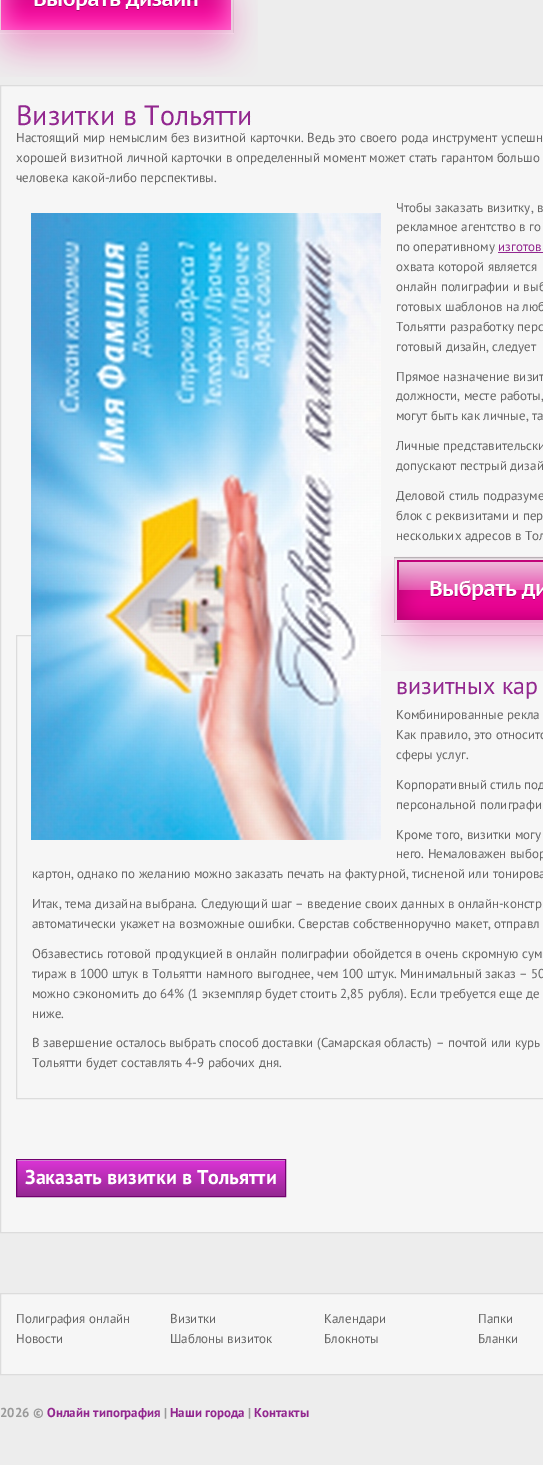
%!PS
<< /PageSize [543 1465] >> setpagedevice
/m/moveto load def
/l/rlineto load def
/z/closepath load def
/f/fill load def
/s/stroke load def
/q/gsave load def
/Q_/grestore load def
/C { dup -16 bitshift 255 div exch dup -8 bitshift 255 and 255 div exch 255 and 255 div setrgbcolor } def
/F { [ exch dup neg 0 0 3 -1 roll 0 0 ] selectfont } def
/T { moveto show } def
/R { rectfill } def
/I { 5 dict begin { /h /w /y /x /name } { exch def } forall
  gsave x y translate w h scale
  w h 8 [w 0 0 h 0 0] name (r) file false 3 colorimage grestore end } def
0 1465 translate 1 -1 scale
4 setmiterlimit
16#EDEDED C
0 0 543 1465 R
(1.rgb) 0 0 258 77 I
16#F6F6F6 C
.5 85.5 m 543 0 l 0 1147 l -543 0 l z q f Q_
16#DCDCDC C
s
/PTSans-Regular 28 F
16#92278F C
(Визитки в Тольятти) 16 125 T
/PTSans-Regular 13 F
16#666666 C
(Настоящий мир немыслим без визитной карточки. Ведь это своего рода инструмент успешн) 16 142 T
(хорошей визитной личной карточки в определенный момент может стать гарантом большо) 16 162 T
(человека какой-либо перспективы.) 16 182 T
16#DCDCDC C
16.5 635.5 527 463 rectstroke
(2.rgb) 31 213 350 627 I
16#666666 C
(Чтобы заказать визитку, в) 396 212 T
(рекламное агентство в го) 396 231 T
(по оперативному) 396 251 T
16#92278F C
(изготов) 498 251 T
498 252 45 1 R
16#666666 C
(охвата которой является) 396 271 T
(онлайн полиграфии и выб) 396 291 T
(готовых шаблонов на люб) 396 311 T
(Тольятти разработку перс) 396 331 T
(готовый дизайн, следует) 396 351 T
(Прямое назначение визит) 396 381 T
(должности, месте работы,) 396 400 T
(могут быть как личные, та) 396 420 T
(Личные представительски) 396 450 T
(допускают пестрый дизай) 396 470 T
(Деловой стиль подразуме) 396 500 T
(блок с реквизитами и пер) 396 520 T
(нескольких адресов в Тол) 396 540 T
(3.rgb) 370 556 173 115 I
/PTSans-Regular 24 F
16#92278F C
(визитных кар) 396 694 T
/PTSans-Regular 13 F
16#666666 C
(Комбинированные рекла) 396 719 T
(Как правило, это относитс) 396 739 T
(сферы услуг.) 396 759 T
(Корпоративный стиль под) 396 789 T
(персональной полиграфи) 396 809 T
(Кроме того, визитки могу) 396 839 T
(него. Немаловажен выбор) 396 858 T
(картон, однако по желанию можно заказать печать на фактурной, тисненой или тонирова) 32 878 T
(Итак, тема дизайна выбрана. Следующий шаг – введение своих данных в онлайн-констр) 32 908 T
(автоматически укажет на возможные ошибки. Сверстав собственноручно макет, отправл) 32 928 T
(Обзавестись готовой продукцией в онлайн полиграфии обойдется в очень скромную сум) 32 958 T
(тираж в 1000 штук в Тольятти намного выгоднее, чем 100 штук. Минимальный заказ – 50) 32 978 T
(можно сэкономить до 64% \(1 экземпляр будет стоить 2,85 рубля\). Если требуется еще де) 32 998 T
(ниже.) 32 1018 T
(В завершение осталось выбрать способ доставки \(Самарская область\) – почтой или курь) 32 1047 T
(Тольятти будет составлять 4-9 рабочих дня.) 32 1067 T
q 17 1161 m 268 0 l 0 35 l -268 0 l z clip newpath
<< /ShadingType 2 /ColorSpace /DeviceRGB /Coords [151 1160 151 1196] /Extend [true true] /Function << /FunctionType 2 /Domain [0 1] /C0 [.859 .204 .839] /C1 [.584 .157 .573] /N 1 >> >> shfill Q_
16#F0AEEE C
17 1160 268 1 R
16#72006F C
16.5 1159.5 269 37 rectstroke
/PTSans-Bold 20 F
16#FFFFFF C
(Заказать визитки в Тольятти) 25 1184 T
16#F6F6F6 C
.5 1293.5 m 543 0 l 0 81 l -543 0 l z q f Q_
16#DCDCDC C
s
/PTSans-Regular 13 F
16#666666 C
(Полиграфия онлайн) 16 1323 T
(Новости) 16 1343 T
(Визитки) 170 1323 T
(Шаблоны визиток) 170 1343 T
(Календари) 324 1323 T
(Блокноты) 324 1343 T
(Папки) 478 1323 T
(Бланки) 478 1343 T
/PTSans-Bold 13 F
16#999999 C
(2026 ©) 0 1417 T
16#92278F C
(Онлайн типография) 47 1417 T
16#999999 C
(|) 164 1417 T
16#92278F C
(Наши города) 170 1417 T
16#999999 C
(|) 248 1417 T
16#92278F C
(Контакты) 254 1417 T
showpage
